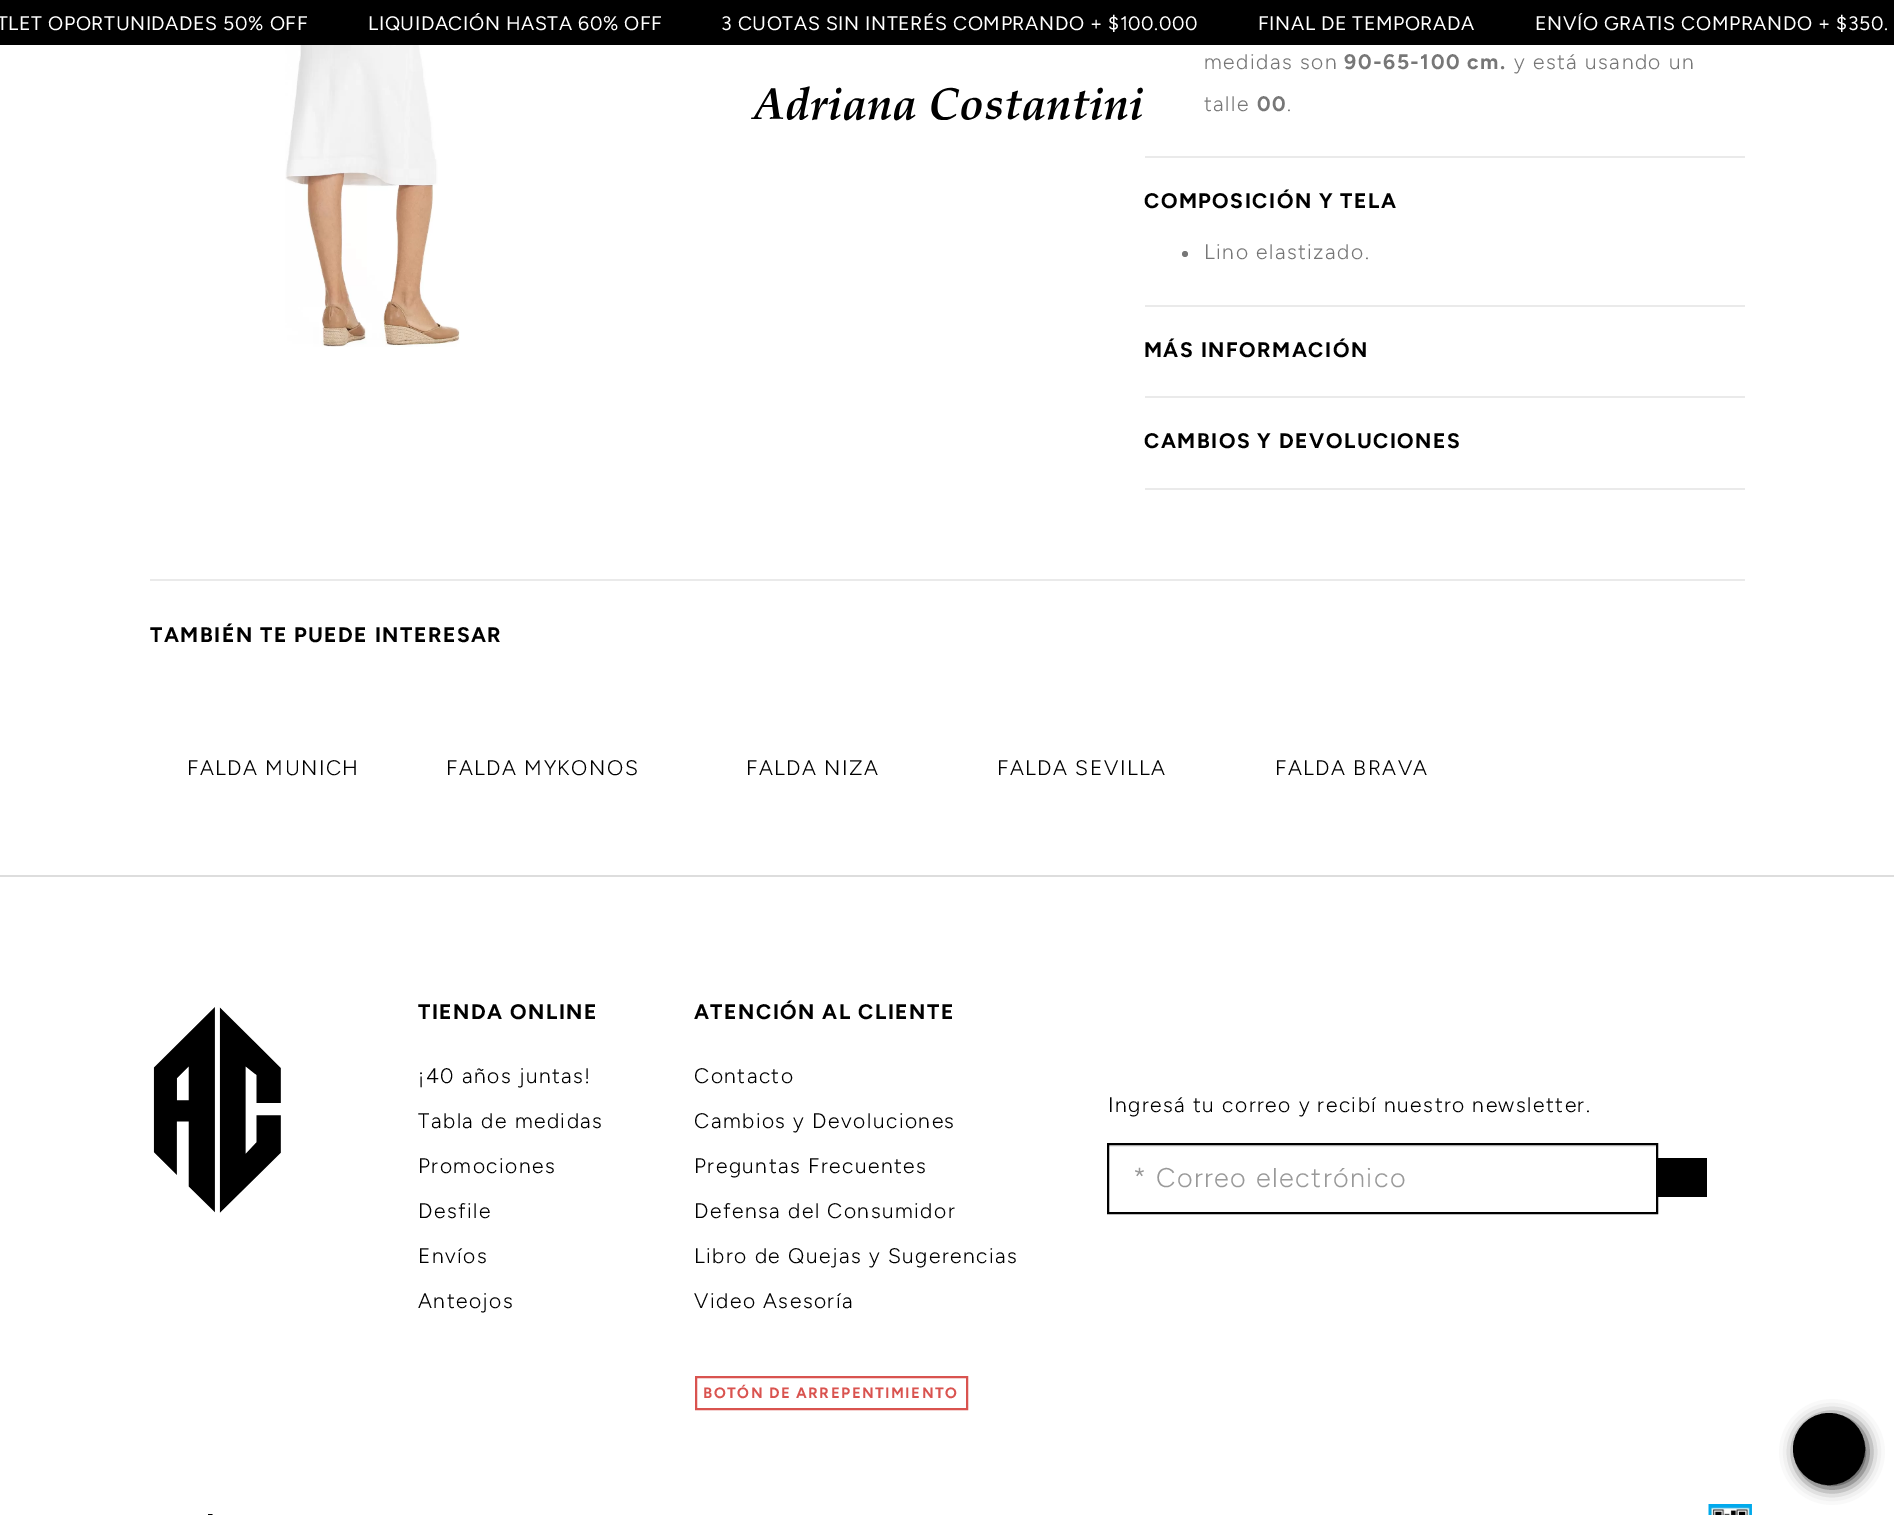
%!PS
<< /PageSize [1894 1515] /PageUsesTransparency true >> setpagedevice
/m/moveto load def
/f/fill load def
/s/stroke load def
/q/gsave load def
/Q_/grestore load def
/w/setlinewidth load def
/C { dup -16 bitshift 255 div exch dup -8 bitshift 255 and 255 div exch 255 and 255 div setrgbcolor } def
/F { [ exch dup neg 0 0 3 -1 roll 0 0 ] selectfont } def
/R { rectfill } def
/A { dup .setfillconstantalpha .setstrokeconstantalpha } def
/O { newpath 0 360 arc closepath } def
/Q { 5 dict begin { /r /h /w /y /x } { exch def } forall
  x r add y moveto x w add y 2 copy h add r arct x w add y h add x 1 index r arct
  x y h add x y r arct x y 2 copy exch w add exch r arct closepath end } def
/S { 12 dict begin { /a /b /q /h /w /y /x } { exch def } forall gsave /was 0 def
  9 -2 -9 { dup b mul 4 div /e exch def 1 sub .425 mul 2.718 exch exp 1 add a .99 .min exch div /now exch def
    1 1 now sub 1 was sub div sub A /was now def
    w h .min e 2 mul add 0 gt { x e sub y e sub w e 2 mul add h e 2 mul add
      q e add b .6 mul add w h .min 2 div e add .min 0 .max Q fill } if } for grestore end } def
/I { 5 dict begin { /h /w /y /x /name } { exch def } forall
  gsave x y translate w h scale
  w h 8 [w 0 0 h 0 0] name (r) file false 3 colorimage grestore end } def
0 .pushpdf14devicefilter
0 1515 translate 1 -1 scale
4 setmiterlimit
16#FFFFFF C
0 0 1894 1515 R
16#000000 C
0 0 1894 45 R
/Figtree-Regular 19.5 F
16#FFFFFF C
-3 30 m .6 0 (TLET OPORTUNIDADES 50% OFF) ashow
368 30 m .6 0 (LIQUIDACIÓN HASTA 60% OFF) ashow
721 30 m .6 0 (3 CUOTAS SIN INTERÉS COMPRANDO + $100.000) ashow
1258 30 m .6 0 (FINAL DE TEMPORADA) ashow
1535 30 m .6 0 (ENVÍO GRATIS COMPRANDO + $350.) ashow
(1.rgb) 285 45 175 302 I
/Figtree-Light 21 F
16#777777 C
1204 69 m 1.5 0 (medidas son) ashow
/Figtree-Bold 21 F
1344 69 m 1.5 0 (90-65-100 cm.) ashow
/Figtree-Light 21 F
1514 69 m 1.5 0 (y está usando un) ashow
1204 111 m 1.5 0 (talle) ashow
/Figtree-Bold 21 F
1257 111 m 1.5 0 (00) ashow
/Figtree-Light 21 F
1287 111 m 1.5 0 (.) ashow
16#EAEAEA C
1145 156 600 2 R
/Figtree-Bold 21 F
16#000000 C
1144 208 m 1.5 0 (COMPOSICIÓN Y TELA) ashow
16#777777 C
1185 254 3 O f
/Figtree-Light 21 F
1204 259 m 1.5 0 (Lino elastizado.) ashow
16#EAEAEA C
1145 305 600 2 R
/Figtree-Bold 21 F
16#000000 C
1144 357 m 1.5 0 (MÁS INFORMACIÓN) ashow
16#EAEAEA C
1145 396 600 2 R
16#000000 C
1144 448 m 1.5 0 (CAMBIOS Y DEVOLUCIONES) ashow
16#EAEAEA C
1145 488 600 2 R
150 579 1595 2 R
16#000000 C
150 642 m 1.5 0 (TAMBIÉN TE PUEDE INTERESAR) ashow
/Figtree-Light 21 F
187 775 m 1.5 0 (FALDA MUNICH) ashow
446 775 m 1.5 0 (FALDA MYKONOS) ashow
746 775 m 1.5 0 (FALDA NIZA) ashow
997 775 m 1.5 0 (FALDA SEVILLA) ashow
1275 775 m 1.5 0 (FALDA BRAVA) ashow
(2.rgb) 751 86 392 35 I
16#DDDDDD C
0 875 1894 2 R
(3.rgb) 153 1007 128 206 I
/Figtree-Bold 21 F
16#000000 C
418 1019 m 1.5 0 (TIENDA ONLINE) ashow
/Figtree-Light 21 F
418 1083 m 1.5 0 (¡40 años juntas!) ashow
418 1128 m 1.5 0 (Tabla de medidas) ashow
418 1173 m 1.5 0 (Promociones) ashow
418 1218 m 1.5 0 (Desfile) ashow
418 1263 m 1.5 0 (Envíos) ashow
418 1308 m 1.5 0 (Anteojos) ashow
/Figtree-Bold 21 F
694 1019 m 1.5 0 (ATENCIÓN AL CLIENTE) ashow
/Figtree-Light 21 F
694 1083 m 1.5 0 (Contacto) ashow
694 1128 m 1.5 0 (Cambios y Devoluciones) ashow
694 1173 m 1.5 0 (Preguntas Frecuentes) ashow
694 1218 m 1.5 0 (Defensa del Consumidor) ashow
694 1263 m 1.5 0 (Libro de Quejas y Sugerencias) ashow
694 1308 m 1.5 0 (Video Asesoría) ashow
16#D9534F C
2 w
696 1377 271 32 rectstroke
/Figtree-Bold 15 F
703 1398 m 1.5 0 (BOTÓN DE ARREPENTIMIENTO) ashow
/Figtree-Light 21 F
16#000000 C
1108 1112 m 1.5 0 (Ingresá tu correo y recibí nuestro newsletter.) ashow
16#ECECEC C
1109 1145 547 2 R
16#000000 C
1108 1144 549 69 rectstroke
/Figtree-Light 27 F
16#999999 C
1133 1187 m 1.5 0 (* Correo electrónico) ashow
16#000000 C
1658 1158 49 39 R
/Figtree-Light 15 F
207 1519 m 1.5 0 (-) ashow
(4.rgb) 1708 1504 44 11 I
16#333333 C
1796 1416 72 72 36 7.5 1 S
16#000000 C
1829 1449 35 O q f Q_
s
.poppdf14devicefilter showpage
